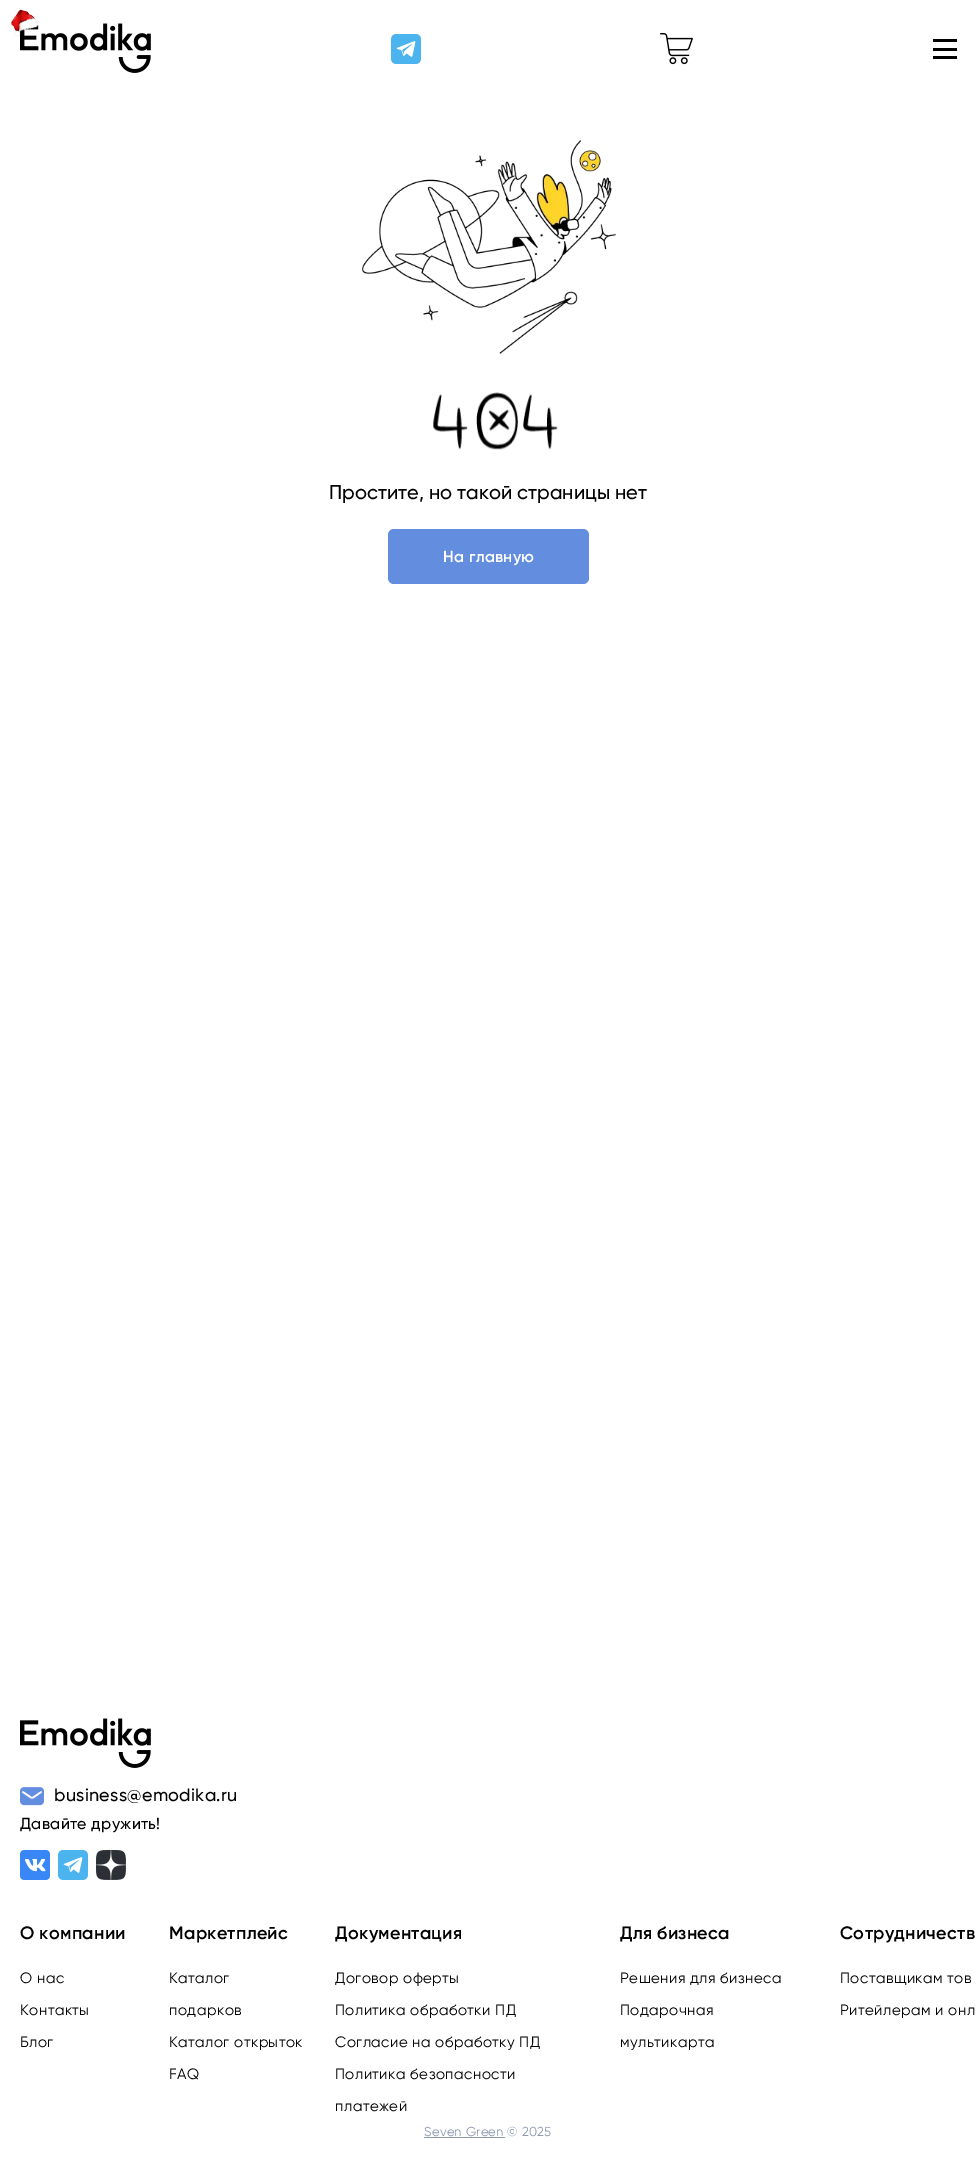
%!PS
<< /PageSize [977 2182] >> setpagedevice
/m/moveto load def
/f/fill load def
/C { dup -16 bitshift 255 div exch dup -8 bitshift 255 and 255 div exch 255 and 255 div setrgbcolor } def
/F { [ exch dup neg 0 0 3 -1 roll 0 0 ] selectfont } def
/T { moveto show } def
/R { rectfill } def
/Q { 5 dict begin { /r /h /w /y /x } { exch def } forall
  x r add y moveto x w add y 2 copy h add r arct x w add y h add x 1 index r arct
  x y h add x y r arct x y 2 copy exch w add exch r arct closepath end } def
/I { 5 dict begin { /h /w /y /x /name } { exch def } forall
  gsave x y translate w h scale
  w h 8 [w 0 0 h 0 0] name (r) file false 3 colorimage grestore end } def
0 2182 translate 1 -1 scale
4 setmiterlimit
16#FFFFFF C
0 0 977 2182 R
(2.rgb) 20 23 131 50 I
(1.rgb) 11 9 27 28 I
(3.rgb) 391 34 30 30 I
(4.rgb) 660 33 33 32 I
16#000000 C
933 39 24 3 R
933 48 24 3 R
933 56 24 3 R
(5.rgb) 362 140 254 214 I
(6.rgb) 433 392 125 58 I
/Gilroy-Medium 20 F
(Простите, но такой страницы нет) 329 499 T
16#638DDE C
388 529 201 55 6 Q f
/Gilroy-SemiBold 16 F
16#FFFFFF C
443 562 m .3 0 (На главную) ashow
(2.rgb) 20 1718 131 50 I
(7.rgb) 20 1787 24 19 I
/Gilroy-Medium 18 F
16#000000 C
54 1801 m .3 0 (business@emodika.ru) ashow
/Gilroy-Medium 16 F
20 1829 m .3 0 (Давайте дружить!) ashow
(8.rgb) 20 1850 30 30 I
(3.rgb) 58 1850 30 30 I
(9.rgb) 96 1850 30 30 I
/Gilroy-SemiBold 18 F
20 1939 m .3 0 (О компании) ashow
/Gilroy-Regular 15 F
20 1983 m .45 0 (О нас) ashow
20 2015 m .45 0 (Контакты) ashow
20 2047 m .45 0 (Блог) ashow
/Gilroy-SemiBold 18 F
169 1939 m .3 0 (Маркетплейс) ashow
/Gilroy-Regular 15 F
169 1983 m .45 0 (Каталог) ashow
169 2015 m .45 0 (подарков) ashow
169 2047 m .45 0 (Каталог открыток) ashow
169 2079 m .45 0 (FAQ) ashow
/Gilroy-SemiBold 18 F
335 1939 m .3 0 (Документация) ashow
/Gilroy-Regular 15 F
335 1983 m .45 0 (Договор оферты) ashow
335 2015 m .45 0 (Политика обработки ПД) ashow
335 2047 m .45 0 (Согласие на обработку ПД) ashow
335 2079 m .45 0 (Политика безопасности) ashow
335 2111 m .45 0 (платежей) ashow
/Gilroy-SemiBold 18 F
620 1939 m .3 0 (Для бизнеса) ashow
/Gilroy-Regular 15 F
620 1983 m .45 0 (Решения для бизнеса) ashow
620 2015 m .45 0 (Подарочная) ashow
620 2047 m .45 0 (мультикарта) ashow
/Gilroy-SemiBold 18 F
840 1939 m .3 0 (Сотрудничеств) ashow
/Gilroy-Regular 15 F
840 1983 m .45 0 (Поставщикам тов) ashow
840 2015 m .45 0 (Ритейлерам и онл) ashow
/Gilroy-Regular 13 F
16#8D99AF C
424 2136 m .3 0 (Seven Green © 2025) ashow
424 2137 81 1 R
showpage
